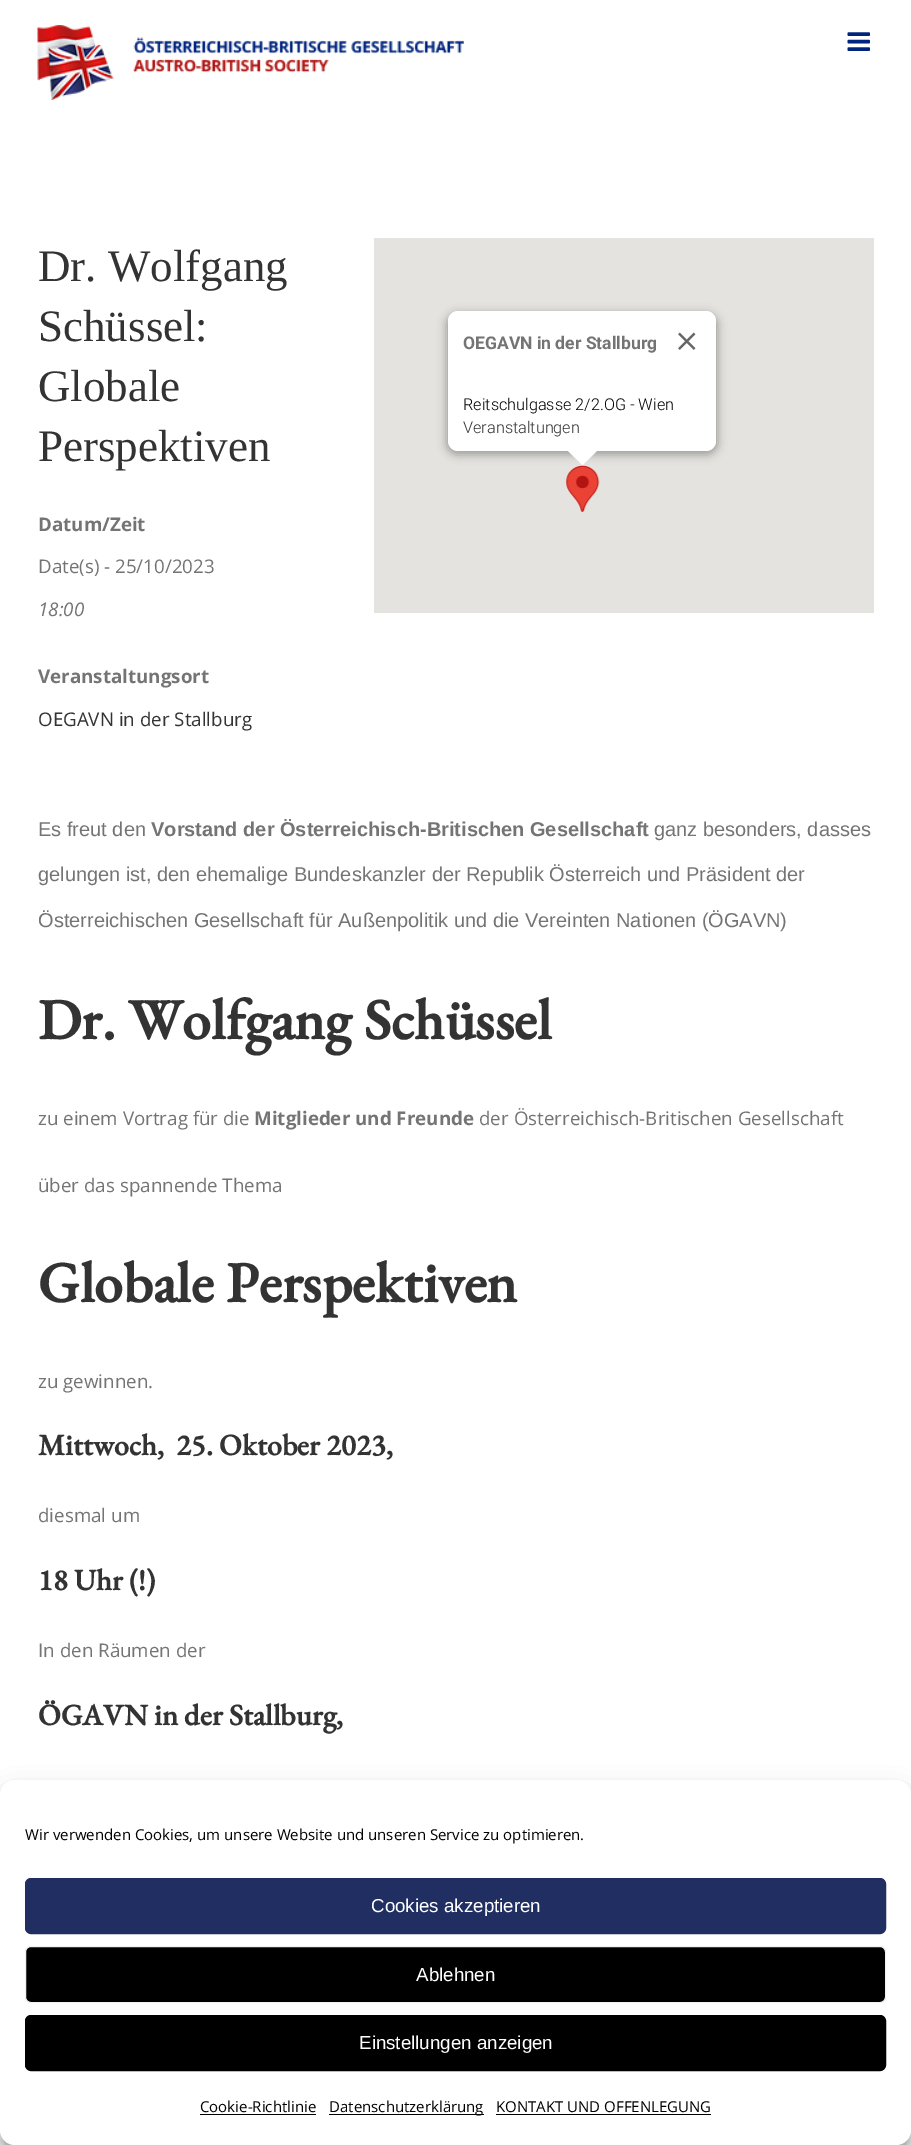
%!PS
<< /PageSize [911 2145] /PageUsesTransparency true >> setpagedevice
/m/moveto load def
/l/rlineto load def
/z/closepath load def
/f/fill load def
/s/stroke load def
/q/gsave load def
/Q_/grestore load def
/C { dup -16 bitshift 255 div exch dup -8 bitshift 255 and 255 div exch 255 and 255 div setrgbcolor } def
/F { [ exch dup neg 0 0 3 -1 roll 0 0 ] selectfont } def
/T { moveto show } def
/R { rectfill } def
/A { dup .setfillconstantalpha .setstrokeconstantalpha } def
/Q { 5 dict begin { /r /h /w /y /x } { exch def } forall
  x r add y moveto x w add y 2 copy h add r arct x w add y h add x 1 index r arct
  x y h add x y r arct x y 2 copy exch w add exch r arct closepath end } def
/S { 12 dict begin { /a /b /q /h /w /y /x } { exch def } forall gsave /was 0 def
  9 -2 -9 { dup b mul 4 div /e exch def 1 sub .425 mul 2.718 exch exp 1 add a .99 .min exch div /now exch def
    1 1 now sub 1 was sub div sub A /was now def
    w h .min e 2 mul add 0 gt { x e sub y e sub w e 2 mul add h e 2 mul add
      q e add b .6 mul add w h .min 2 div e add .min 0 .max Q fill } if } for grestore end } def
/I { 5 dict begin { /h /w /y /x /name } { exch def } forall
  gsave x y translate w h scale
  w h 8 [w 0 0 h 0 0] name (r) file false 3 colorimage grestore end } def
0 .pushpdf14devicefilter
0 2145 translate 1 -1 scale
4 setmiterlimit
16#FFFFFF C
0 0 911 2145 R
(1.rgb) 37 25 427 75 I
(2.rgb) 847 32 23 19 I
/LiberationSerif-Regular 45 F
16#333333 C
(Dr. Wolfgang) 38 281 T
(Schüssel:) 38 341 T
(Globale) 38 401 T
(Perspektiven) 38 461 T
16#E5E3DF C
374 238 500 375 R
(4.rgb) 566 465 34 47 I
16#000000 C
446 313 272 142 11 4.5 .3 S
16#FFFFFF C
448 311 268 140 10 Q f
/Roboto-Bold 17.5 F
16#747474 C
(OEGAVN in der Stallburg) 463 349 T
(3.rgb) 678 332 18 18 I
/Roboto-Light 16.25 F
16#000000 C
(Reitschulgasse 2/2.OG - Wien) 463 410 T
16#333333 C
(Veranstaltungen) 463 433 T
16#FFFFFF C
568 450 m 0 1 l 14.5 14 l 15.5 -15 l z f
/OpenSans-Bold 18.75 F
16#747474 C
(Datum/Zeit) 38 531 T
/OpenSans-Regular 18.75 F
(Date\(s\) - 25/10/2023) 38 573 T
/OpenSans-Italic 18.75 F
(18:00) 38 616 T
/OpenSans-Bold 18.75 F
(Veranstaltungsort) 38 683 T
/OpenSans-Regular 18.75 F
16#333333 C
(OEGAVN in der Stallburg) 38 726 T
/LiberationSans-Regular 20 F
16#747474 C
(Es freut den) 38 836 T
/LiberationSans-Bold 20 F
(Vorstand der Österreichisch-Britischen Gesellschaft) 151 836 T
/LiberationSans-Regular 20 F
(ganz besonders, dasses) 654 836 T
(gelungen ist, den ehemalige Bundeskanzler der Republik Österreich und Präsident der) 38 881 T
(Österreichischen Gesellschaft für Außenpolitik und die Vereinten Nationen \(ÖGAVN\)) 38 927 T
/EBGaramond-Bold 57.25 F
16#333333 C
(Dr. Wolfgang Schüssel) 38 1039 T
/OpenSans-Regular 18.75 F
16#747474 C
(zu einem Vortrag für die) 38 1125 T
/OpenSans-Bold 18.75 F
(Mitglieder und Freunde) 254 1125 T
/OpenSans-Regular 18.75 F
(der Österreichisch-Britischen Gesellschaft) 479 1125 T
(über das spannende Thema) 38 1192 T
/EBGaramond-Bold 57.25 F
16#333333 C
(Globale Perspektiven) 38 1302 T
/OpenSans-Regular 18.75 F
16#747474 C
(zu gewinnen.) 38 1388 T
/EBGaramond-Bold 29.8 F
16#333333 C
(Mittwoch,  25. Oktober 2023,) 38 1455 T
/OpenSans-Regular 18.75 F
16#747474 C
(diesmal um) 38 1522 T
/EBGaramond-Bold 29.8 F
16#333333 C
(18 Uhr \(!\)) 38 1590 T
/OpenSans-Regular 18.75 F
16#747474 C
(In den Räumen der) 38 1657 T
/EBGaramond-Bold 29.8 F
16#333333 C
(ÖGAVN in der Stallburg,) 38 1725 T
16#000000 C
0 1788 911 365 15 4 .23 S
0 1793 911 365 15 12.5 .19 S
16#FFFFFF C
0 1780 911 365 15 Q f
/OpenSans-Regular 15 F
16#000000 C
(Wir verwenden Cookies, um unsere Website und unseren Service zu optimieren.) 25 1840 T
16#202E61 C
25.5 1878.5 860 55 5.5 Q q f Q_
s
/LiberationSans-Regular 18.75 F
16#FFFFFF C
(Cookies akzeptieren) 371 1912 T
16#000000 C
25.5 1946.5 860 56 5.5 Q q f Q_
16#F1F1F1 C
s
16#FFFFFF C
(Ablehnen) 416 1981 T
16#000000 C
25.5 2015.5 860 55 5.5 Q q f Q_
s
16#FFFFFF C
(Einstellungen anzeigen) 359 2049 T
/OpenSans-Regular 15 F
16#000000 C
(Cookie-Richtlinie) 200 2112 T
200 2114 116 1 R
329 2114 155 1 R
(Datenschutzerklärung) 329 2112 T
(KONTAKT UND OFFENLEGUNG) 496 2112 T
496 2114 215 1 R
.poppdf14devicefilter showpage
